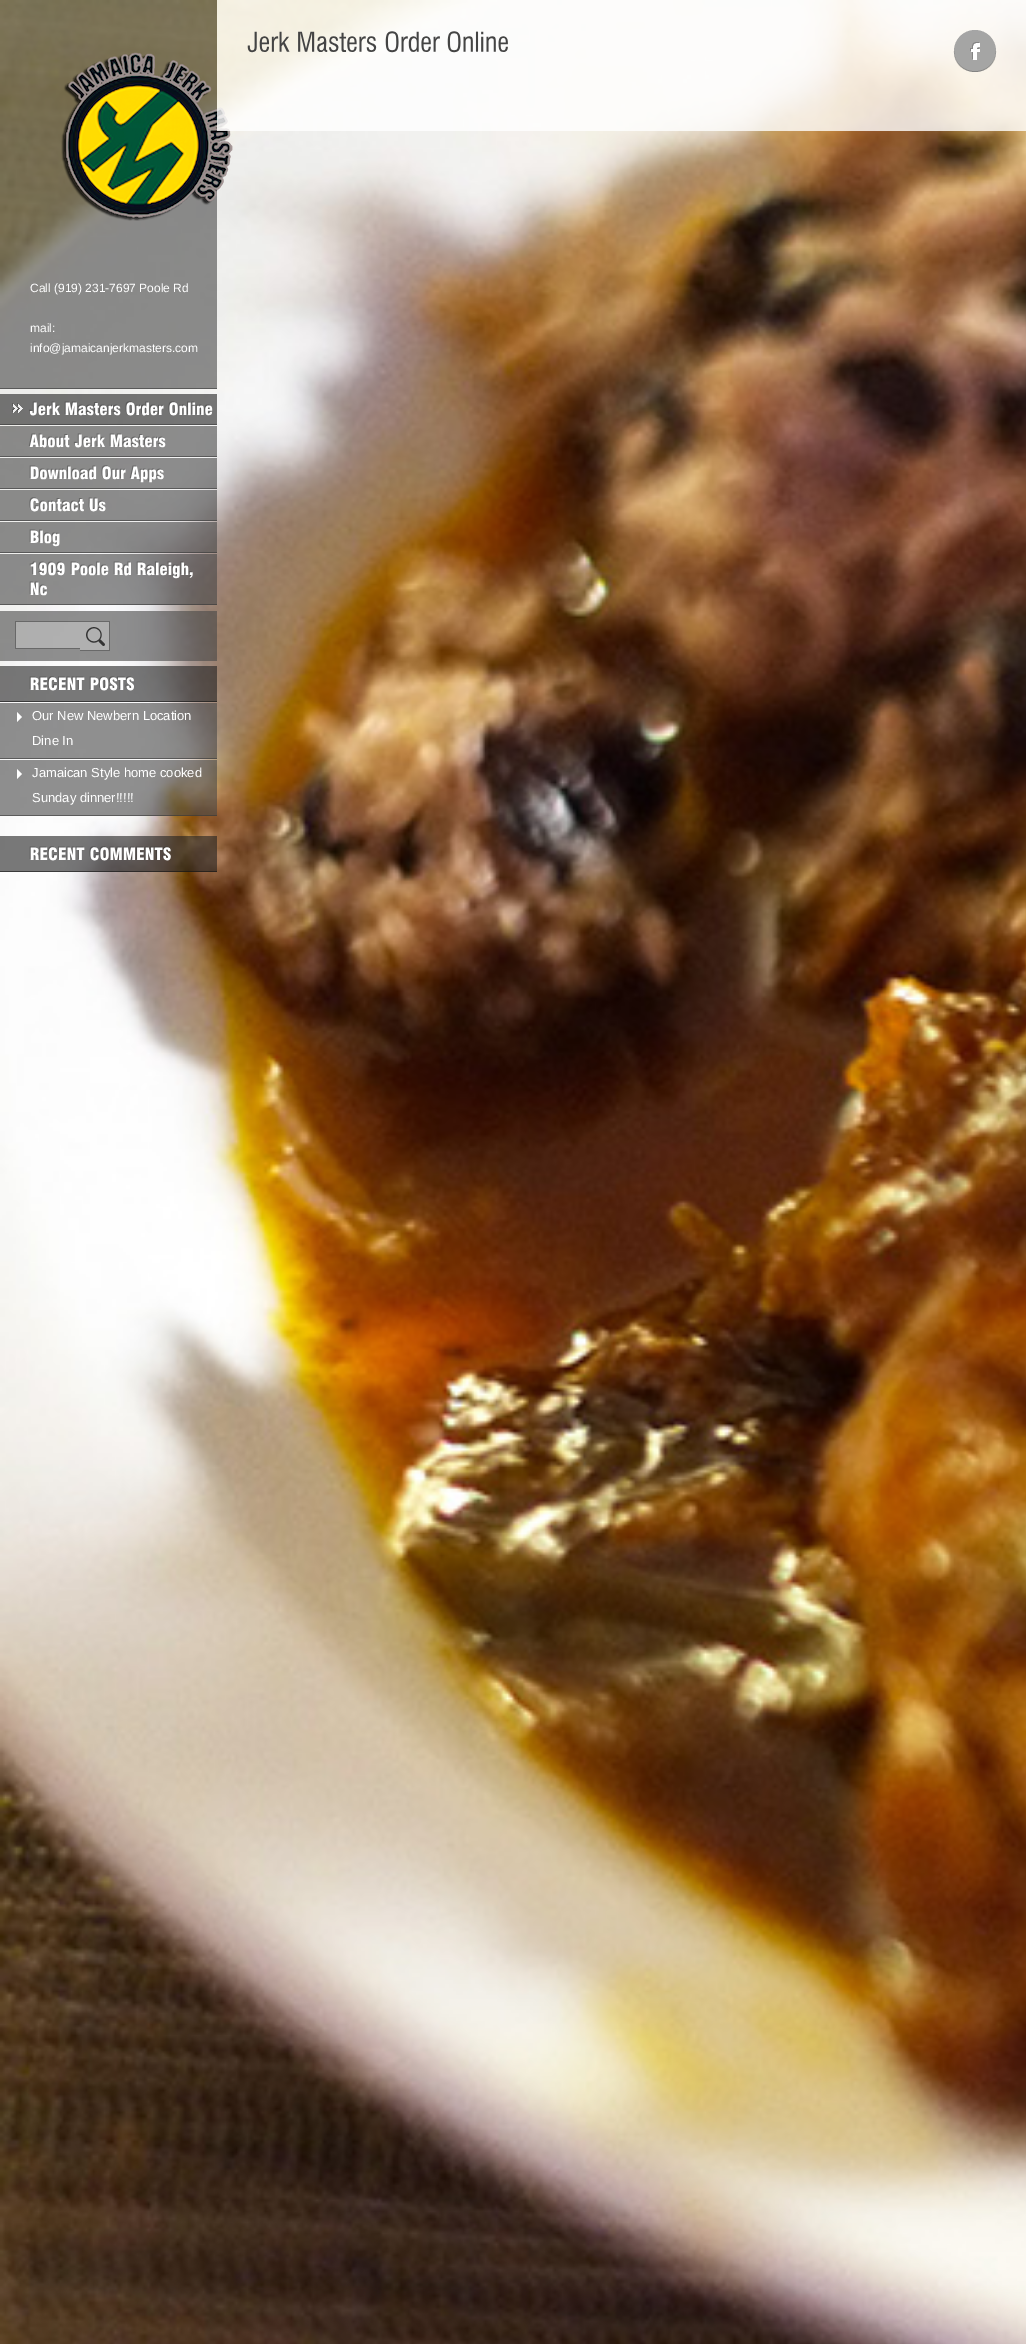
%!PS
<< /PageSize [1026 2344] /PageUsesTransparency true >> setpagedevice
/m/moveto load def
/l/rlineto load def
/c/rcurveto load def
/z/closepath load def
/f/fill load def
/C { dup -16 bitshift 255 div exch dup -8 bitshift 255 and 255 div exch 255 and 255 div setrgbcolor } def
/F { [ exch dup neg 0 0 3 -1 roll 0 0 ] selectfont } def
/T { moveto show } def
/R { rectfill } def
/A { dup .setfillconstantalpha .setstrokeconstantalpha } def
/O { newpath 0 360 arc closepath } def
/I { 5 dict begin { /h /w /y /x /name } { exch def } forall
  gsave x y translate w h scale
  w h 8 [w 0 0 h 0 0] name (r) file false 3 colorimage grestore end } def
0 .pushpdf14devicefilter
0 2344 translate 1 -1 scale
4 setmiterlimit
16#FFFFFF C
0 0 1026 2344 R
(1.rgb) 0 0 1026 2344 I
0.6 A
16#464646 C
0 0 217 389 R
1 A
(7.rgb) 61 52 172 169 I
0.8 A
16#FFFFFF C
217 0 809 131 R
0.9 A
16#9C9C9C C
975 51 21 O f
0.2 A
16#000000 C
996 51 m -1 27 -41 27 -42 0 c -1 28 43 28 42 0 c z f
1 A
(2.rgb) 970 42 10 18 I
(3.rgb) 247 31 43 22 I
(4.rgb) 298 31 79 21 I
(5.rgb) 385 31 55 22 I
(6.rgb) 447 31 61 22 I
0.6 A
16#393939 C
0 388 217 1 R
/LiberationSans-Regular 12 F
1 A
16#FFFFFF C
(Call \(919\) 231-7697 Poole Rd) 30 292 T
(mail:) 30 332 T
(info@jamaicanjerkmasters.com) 30 352 T
0.6 A
16#202020 C
0 394 217 31 R
16#393939 C
0 424 217 1 R
1 A
(8.rgb) 12 403 11 10 I
(9.rgb) 29 401 31 15 I
(10.rgb) 64 401 57 15 I
(11.rgb) 125 401 39 15 I
(12.rgb) 168 401 45 15 I
0.6 A
16#464646 C
0 426 217 31 R
16#393939 C
0 456 217 1 R
1 A
(13.rgb) 28 433 42 15 I
(14.rgb) 73 433 32 15 I
(15.rgb) 109 433 57 15 I
0.6 A
16#464646 C
0 458 217 31 R
16#393939 C
0 488 217 1 R
1 A
(16.rgb) 29 465 68 15 I
(17.rgb) 101 465 25 15 I
(18.rgb) 129 465 35 18 I
0.6 A
16#464646 C
0 490 217 31 R
16#393939 C
0 520 217 1 R
1 A
(19.rgb) 29 497 55 15 I
(20.rgb) 88 497 18 15 I
0.6 A
16#464646 C
0 522 217 31 R
16#393939 C
0 552 217 1 R
1 A
(21.rgb) 29 529 31 18 I
0.6 A
16#464646 C
0 554 217 51 R
16#393939 C
0 604 217 1 R
1 A
(22.rgb) 29 561 36 15 I
(23.rgb) 70 561 39 15 I
(24.rgb) 113 561 18 15 I
(25.rgb) 136 561 57 18 I
(26.rgb) 29 581 18 15 I
0.6 A
16#464646 C
0 611 217 50 R
0.3 A
16#FFFFFF C
15 621 65 28 R
0.6 A
16#393939 C
15 621 m 65 0 l 0 1 l -64 0 l z f
1 A
16#686868 C
80 649 m -65 0 l 1 -1 l 64 0 l z f
0.6 A
16#393939 C
15 649 m 0 -28 l 1 1 l 0 26 l z f
1 A
16#B0B0B0 C
80 621 30 30 R
(27.rgb) 86 627 19 19 I
16#696969 C
80 621 m 30 0 l -1 1 l -29 0 l z f
0.6 A
16#393939 C
110 621 m 0 30 l -1 -1 l 0 -28 l z f
110 651 m -30 0 l 0 -1 l 29 0 l z f
16#202020 C
0 666 217 36 R
16#131313 C
0 701 217 1 R
1 A
(28.rgb) 29 676 56 15 I
(29.rgb) 89 676 45 15 I
0.6 A
16#464646 C
0 703 217 56 R
16#393939 C
0 758 217 1 R
1 A
16#FFFFFF C
17 722 m 0 -10 l 5 5 l z f
/LiberationSans-Regular 13 F
(Our New Newbern Location) 32 720 T
(Dine In) 32 745 T
0.6 A
16#464646 C
0 760 217 56 R
16#393939 C
0 815 217 1 R
1 A
16#FFFFFF C
17 779 m 0 -10 l 5 5 l z f
(Jamaican Style home cooked) 32 777 T
(Sunday dinner!!!!!) 32 802 T
0.6 A
16#202020 C
0 836 217 36 R
16#131313 C
0 871 217 1 R
1 A
(30.rgb) 29 846 56 15 I
(31.rgb) 89 846 82 15 I
.poppdf14devicefilter showpage
